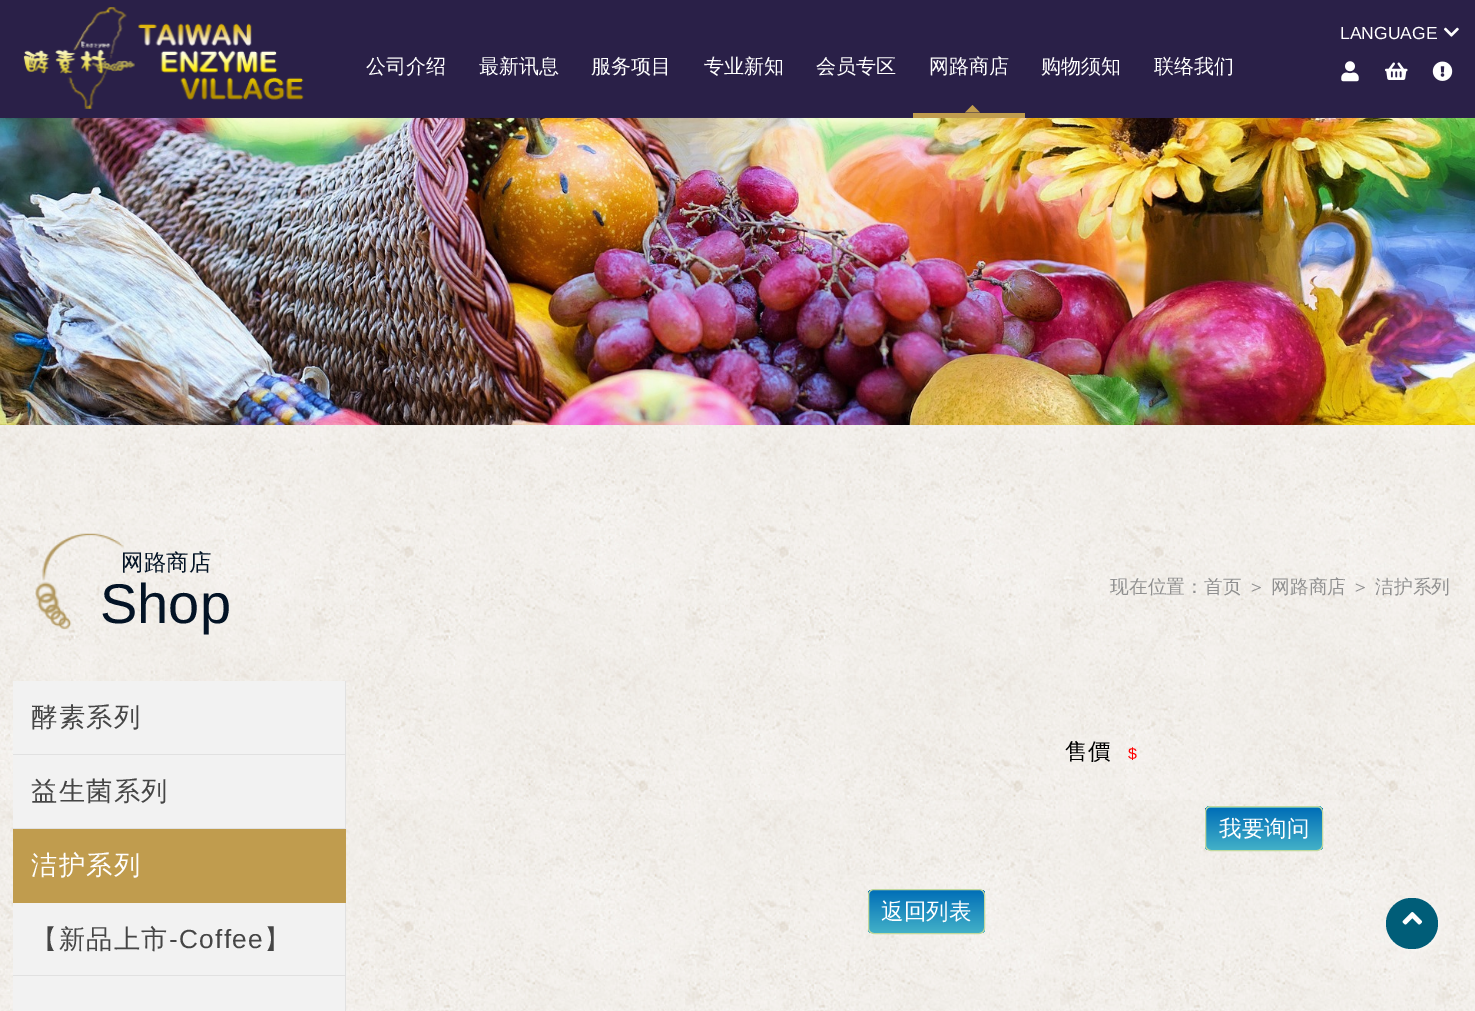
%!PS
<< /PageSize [1475 1011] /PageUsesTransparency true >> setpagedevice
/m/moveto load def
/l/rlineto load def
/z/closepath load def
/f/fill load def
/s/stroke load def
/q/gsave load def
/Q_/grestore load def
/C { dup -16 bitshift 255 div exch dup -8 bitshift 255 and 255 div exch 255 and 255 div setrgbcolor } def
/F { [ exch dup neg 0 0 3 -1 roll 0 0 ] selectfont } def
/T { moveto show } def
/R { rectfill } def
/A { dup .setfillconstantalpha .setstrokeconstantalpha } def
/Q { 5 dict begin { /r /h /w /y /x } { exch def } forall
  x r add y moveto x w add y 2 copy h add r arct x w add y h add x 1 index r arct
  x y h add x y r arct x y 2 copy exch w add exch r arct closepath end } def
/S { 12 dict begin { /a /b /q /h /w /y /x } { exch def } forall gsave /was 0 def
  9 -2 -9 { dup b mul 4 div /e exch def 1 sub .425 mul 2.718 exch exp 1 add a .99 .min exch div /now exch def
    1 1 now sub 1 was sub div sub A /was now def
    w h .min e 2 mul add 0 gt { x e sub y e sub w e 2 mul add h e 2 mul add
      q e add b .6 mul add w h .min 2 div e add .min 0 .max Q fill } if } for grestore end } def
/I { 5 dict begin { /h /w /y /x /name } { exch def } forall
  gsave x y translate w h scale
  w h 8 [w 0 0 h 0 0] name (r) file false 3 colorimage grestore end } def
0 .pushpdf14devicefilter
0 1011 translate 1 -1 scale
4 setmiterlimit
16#2A2048 C
0 0 1475 1011 R
(6.rgb) 0 117 1475 308 I
0.93 A
0 117 1475 1 R
1 A
(1.rgb) 23 7 281 102 I
/LiberationSans-Regular 17.5 F
16#FFFFFF C
(LANGUAGE) 1340 39 T
(2.rgb) 1444 27 15 10 I
(3.rgb) 1341 61 18 21 I
(4.rgb) 1385 62 23 18 I
(5.rgb) 1432 61 21 20 I
/WenQuanYiZenHei-Medium 20 F
(公司介绍) 366 73 T
(最新讯息) 479 73 T
(服务项目) 591 73 T
(专业新知) 704 73 T
(会员专区) 816 73 T
16#C09C4E C
913 113 112 5 R
16#FFFFFF C
(网路商店) 929 73 T
16#C09C4E C
980 112.5 m -15 0 l 7.5 -7.5 l z f
16#FFFFFF C
(购物须知) 1041 73 T
(联络我们) 1154 73 T
(7.rgb) 0 425 1475 586 I
(8.rgb) 34 533 90 97 I
/WenQuanYiZenHei-Medium 22.5 F
16#031325 C
(网路商店) 121 570 T
/LiberationSans-Regular 56 F
(Shop) 100 623 T
/WenQuanYiZenHei-Medium 18.75 F
16#909090 C
(现在位置：首页) 1110 593 T
(＞) 1247 593 T
(网路商店) 1271 593 T
(＞) 1351 593 T
(洁护系列) 1375 593 T
16#F2F2F2 C
13 681 332 330 R
16#E1E1E1 C
345 681 1 148 R
13 754 333 1 R
/WenQuanYiZenHei-Medium 26.25 F
16#454545 C
31 726 m 1.25 0 (酵素系列) ashow
16#E1E1E1 C
13 828 333 1 R
16#454545 C
31 800 m 1.25 0 (益生菌系列) ashow
16#C09C4E C
13 829 333 74 R
16#FFFFFF C
31 874 m 1.25 0 (洁护系列) ashow
16#E1E1E1 C
345 903 1 108 R
13 975 333 1 R
16#454545 C
31 948 m 1.25 0 (【新品上市) ashow
/LiberationSans-Regular 26.25 F
169 948 m 1.25 0 (-Coffee) ashow
/WenQuanYiZenHei-Medium 26.25 F
264 948 m 1.25 0 (】) ashow
/WenQuanYiZenHei-Medium 22.5 F
16#000000 C
(售價) 1065 759 T
/LiberationSans-Regular 16 F
16#FF0000 C
($) 1128 759 T
q
1205 806 118 45 6 Q clip newpath
q 1205 806 m 118 0 l 0 2 l -118 0 l z clip newpath
<< /ShadingType 2 /ColorSpace /DeviceRGB /Coords [1264 765 1264 808] /Extend [true true] /Function << /FunctionType 2 /Domain [0 1] /C0 [0 .431 .718] /C1 [.263 .694 .784] /N 1 >> >> shfill Q_
q 1205 808 m 118 0 l 0 42 l -118 0 l z clip newpath
<< /ShadingType 2 /ColorSpace /DeviceRGB /Coords [1264 808 1264 850] /Extend [true true] /Function << /FunctionType 2 /Domain [0 1] /C0 [0 .431 .718] /C1 [.263 .694 .784] /N 1 >> >> shfill Q_
Q_
16#C2D89E C
1205.5 806.5 117 44 5.5 Q s
/WenQuanYiZenHei-Medium 22.5 F
16#FFFFFF C
(我要询问) 1219 836 T
q
868 889 117 45 6 Q clip newpath
q 868 890 m 117 0 l 0 43 l -117 0 l z clip newpath
<< /ShadingType 2 /ColorSpace /DeviceRGB /Coords [926 890 926 933] /Extend [true true] /Function << /FunctionType 2 /Domain [0 1] /C0 [0 .431 .718] /C1 [.263 .694 .784] /N 1 >> >> shfill Q_
Q_
16#C2D89E C
868.5 889.5 116 44 5.5 Q s
16#FFFFFF C
(返回列表) 881 919 T
1388 899 51 51 25.5 2 .5 S
16#005D78 C
1386 898 52 51 25.5 Q f
(9.rgb) 1402 912 21 13 I
.poppdf14devicefilter showpage
